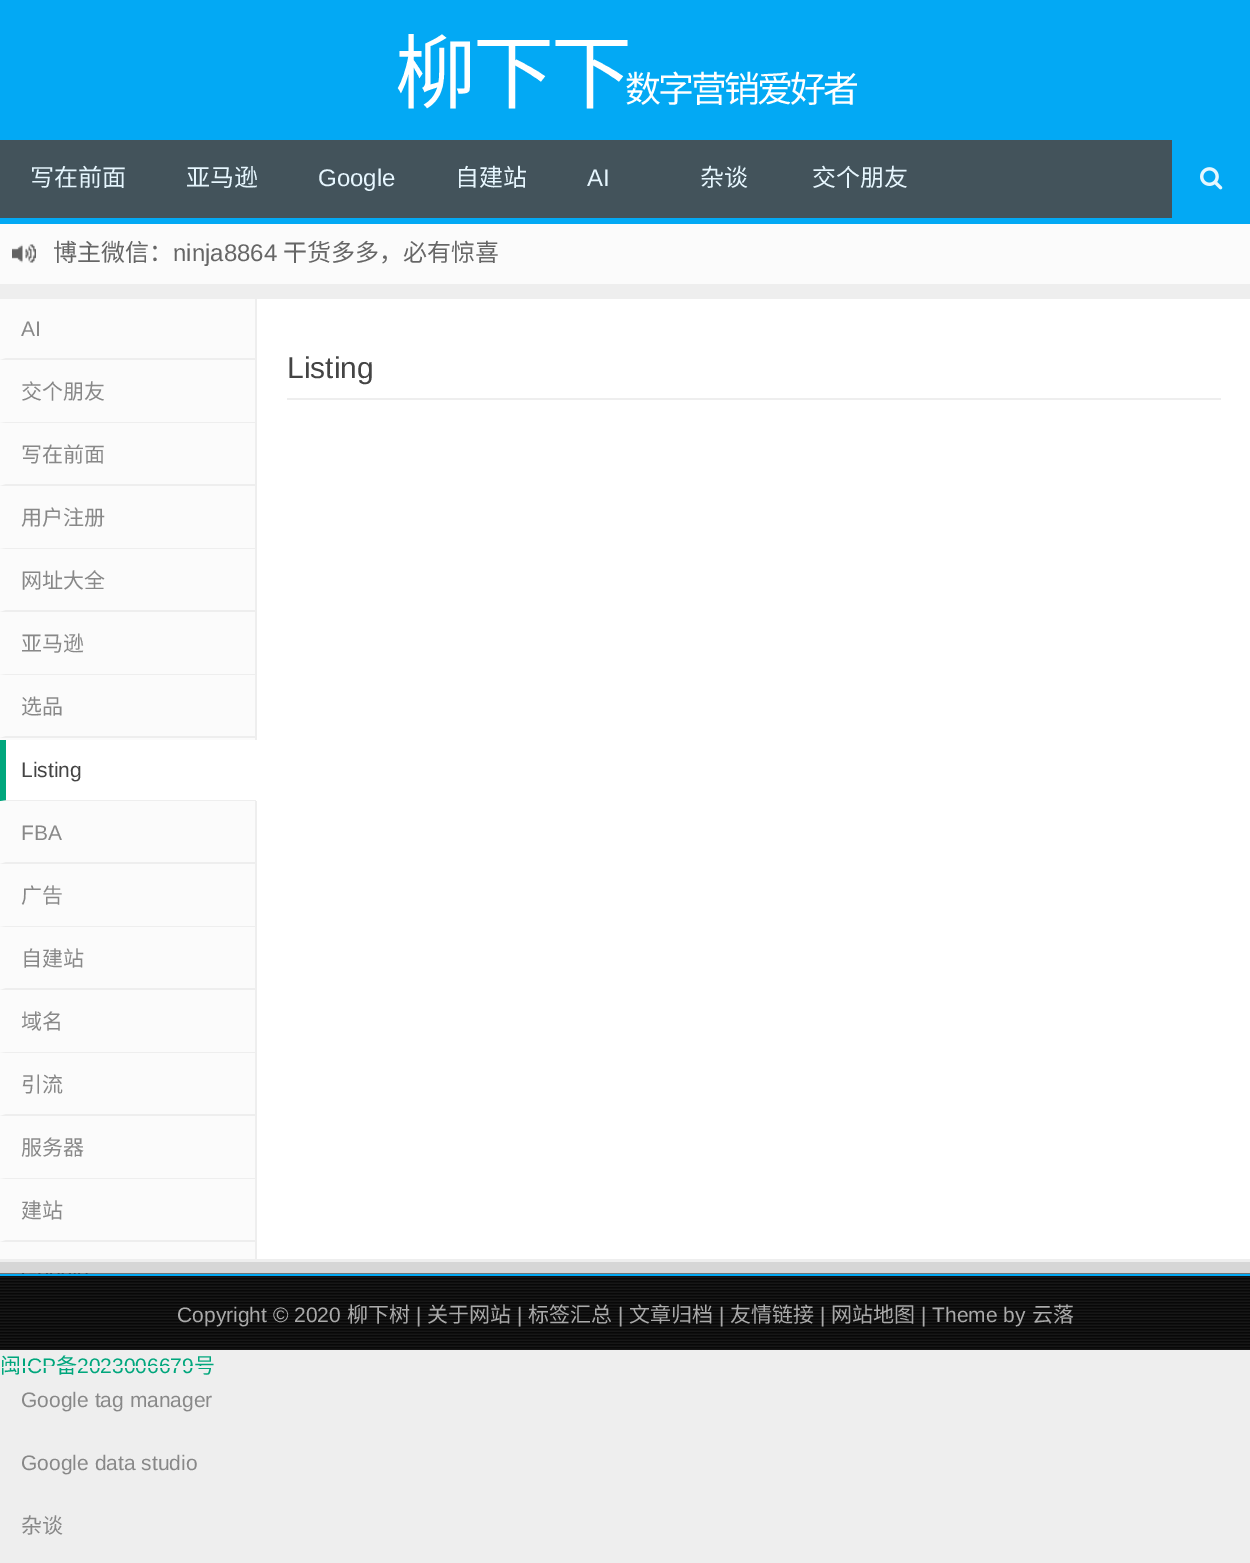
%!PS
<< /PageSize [1250 1563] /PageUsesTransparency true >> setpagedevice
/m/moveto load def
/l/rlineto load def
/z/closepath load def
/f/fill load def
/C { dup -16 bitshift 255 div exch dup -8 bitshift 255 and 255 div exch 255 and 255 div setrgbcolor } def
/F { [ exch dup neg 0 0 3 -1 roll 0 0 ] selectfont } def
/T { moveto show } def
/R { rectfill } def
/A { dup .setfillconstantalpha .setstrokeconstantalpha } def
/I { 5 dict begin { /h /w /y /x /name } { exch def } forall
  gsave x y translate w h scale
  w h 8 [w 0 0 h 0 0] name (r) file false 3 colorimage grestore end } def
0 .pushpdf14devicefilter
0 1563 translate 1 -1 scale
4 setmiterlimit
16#EEEEEE C
0 0 1250 1563 R
16#03A9F4 C
0 0 1250 140 R
/NotoSansCJKSC-Regular 81 F
16#FFFFFF C
395 102 m -3 0 (柳下下) ashow
/NotoSansCJKSC-Regular 36 F
625 102 m -3 0 (数字营销爱好者) ashow
16#43535B C
0 140 1172 78 R
16#03A9F4 C
0 218 1250 6 R
/NotoSansCJKSC-Regular 24 F
16#E6F6FE C
(写在前面) 30 186 T
(亚马逊) 186 186 T
/LiberationSans-Regular 24 F
(Google) 318 186 T
/NotoSansCJKSC-Regular 24 F
(自建站) 455 186 T
/LiberationSans-Regular 24 F
(AI) 587 186 T
/NotoSansCJKSC-Regular 24 F
(杂谈) 700 186 T
(交个朋友) 812 186 T
16#03A9F4 C
1172 140 78 78 R
(1.rgb) 1200 167 23 23 I
16#FBFBFB C
0 224 1250 60 R
(2.rgb) 12 244 24 19 I
16#666666 C
(博主微信：) 53 261 T
/LiberationSans-Regular 24 F
(ninja8864) 173 261 T
/NotoSansCJKSC-Regular 24 F
(干货多多，必有惊喜) 283 261 T
16#FFFFFF C
257 299 993 960 R
16#FBFBFB C
0 299 255 960 R
16#EEEEEE C
255 360 m -255 0 l 6 -2 l 249 0 l z f
/LiberationSans-Regular 21 F
16#888888 C
(AI) 21 336 T
16#EEEEEE C
255 423 m -255 0 l 6 -1 l 249 0 l z f
/NotoSansCJKSC-Regular 21 F
16#888888 C
(交个朋友) 21 399 T
16#EEEEEE C
255 486 m -255 0 l 6 -2 l 249 0 l z f
16#888888 C
(写在前面) 21 462 T
16#EEEEEE C
255 549 m -255 0 l 6 -1 l 249 0 l z f
16#888888 C
(用户注册) 21 525 T
16#EEEEEE C
255 612 m -255 0 l 6 -2 l 249 0 l z f
16#888888 C
(网址大全) 21 588 T
16#EEEEEE C
255 675 m -255 0 l 6 -1 l 249 0 l z f
16#888888 C
(亚马逊) 21 651 T
16#EEEEEE C
255 738 m -255 0 l 6 -2 l 249 0 l z f
16#888888 C
(选品) 21 714 T
16#FFFFFF C
0 740 257 61 R
16#EEEEEE C
256 801 m -256 0 l 6 -1 l 250 0 l z f
16#00A67C C
0 801 m 0 -61 l 6 0 l 0 60 l z f
/LiberationSans-Regular 21 F
16#444444 C
(Listing) 21 777 T
16#EEEEEE C
255 864 m -255 0 l 6 -2 l 249 0 l z f
16#888888 C
(FBA) 21 840 T
16#EEEEEE C
255 927 m -255 0 l 6 -1 l 249 0 l z f
/NotoSansCJKSC-Regular 21 F
16#888888 C
(广告) 21 903 T
16#EEEEEE C
255 990 m -255 0 l 6 -2 l 249 0 l z f
16#888888 C
(自建站) 21 966 T
16#EEEEEE C
255 1053 m -255 0 l 6 -1 l 249 0 l z f
16#888888 C
(域名) 21 1029 T
16#EEEEEE C
255 1116 m -255 0 l 6 -2 l 249 0 l z f
16#888888 C
(引流) 21 1092 T
16#EEEEEE C
255 1179 m -255 0 l 6 -1 l 249 0 l z f
16#888888 C
(服务器) 21 1155 T
16#EEEEEE C
255 1242 m -255 0 l 6 -2 l 249 0 l z f
16#888888 C
(建站) 21 1218 T
16#00A67C C
(闽) 0 1373 T
/LiberationSans-Regular 21 F
(ICP) 21 1373 T
/NotoSansCJKSC-Regular 21 F
(备) 56 1373 T
/LiberationSans-Regular 21 F
(2023006679) 77 1373 T
/NotoSansCJKSC-Regular 21 F
(号) 194 1373 T
16#EEEEEE C
255 1368 m -255 0 l 6 -2 l 249 0 l z f
/LiberationSans-Regular 21 F
16#888888 C
(Google tag manager) 21 1407 T
(Google data studio) 21 1470 T
/NotoSansCJKSC-Regular 21 F
(杂谈) 21 1533 T
16#EEEEEE C
287 398 934 2 R
/LiberationSans-Regular 30 F
16#444444 C
(Listing) 287 378 T
0.1 A
16#000000 C
0 1262 1250 12 R
1 A
(3.rgb) 0 1273 1250 77 I
16#03A9F4 C
0 1274 1250 2 R
/LiberationSans-Regular 21 F
16#AAAAAA C
(Copyright © 2020) 177 1322 T
/NotoSansCJKSC-Regular 21 F
(柳下树) 347 1322 T
/LiberationSans-Regular 21 F
(|) 416 1322 T
/NotoSansCJKSC-Regular 21 F
(关于网站) 427 1322 T
/LiberationSans-Regular 21 F
(|) 517 1322 T
/NotoSansCJKSC-Regular 21 F
(标签汇总) 528 1322 T
/LiberationSans-Regular 21 F
(|) 618 1322 T
/NotoSansCJKSC-Regular 21 F
(文章归档) 629 1322 T
/LiberationSans-Regular 21 F
(|) 719 1322 T
/NotoSansCJKSC-Regular 21 F
(友情链接) 730 1322 T
/LiberationSans-Regular 21 F
(|) 820 1322 T
/NotoSansCJKSC-Regular 21 F
(网站地图) 831 1322 T
/LiberationSans-Regular 21 F
(| Theme by) 921 1322 T
/NotoSansCJKSC-Regular 21 F
(云落) 1032 1322 T
.poppdf14devicefilter showpage
